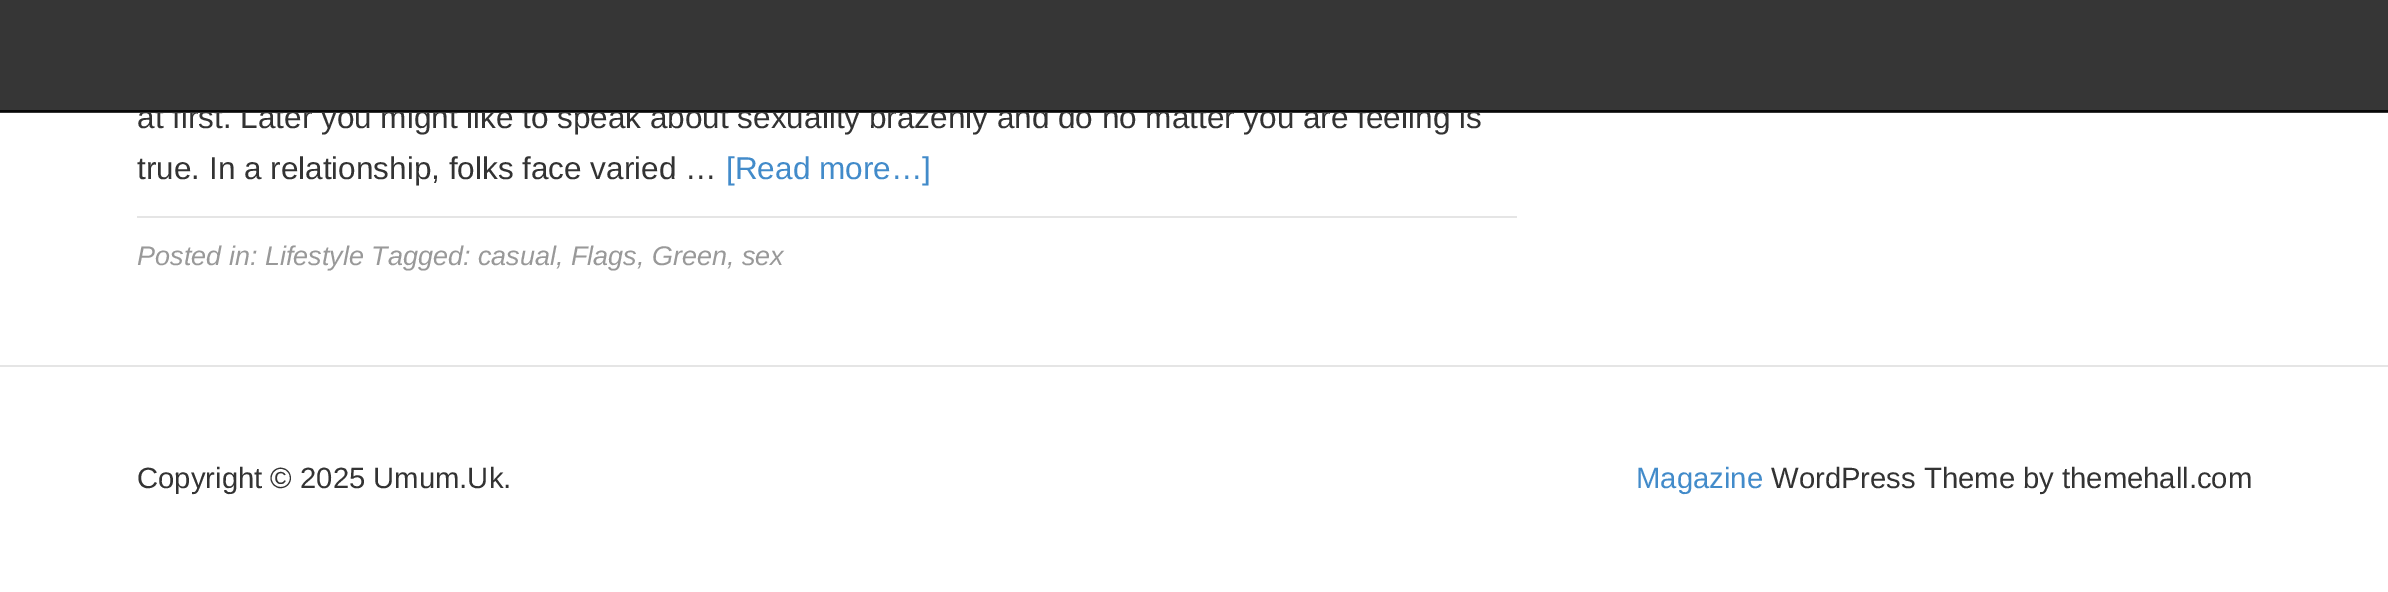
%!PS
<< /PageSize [2388 592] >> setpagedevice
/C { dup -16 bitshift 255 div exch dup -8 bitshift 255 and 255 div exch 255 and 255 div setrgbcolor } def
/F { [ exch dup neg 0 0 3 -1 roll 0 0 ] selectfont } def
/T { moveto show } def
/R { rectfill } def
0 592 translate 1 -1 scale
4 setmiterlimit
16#FFFFFF C
0 0 2388 592 R
/LiberationSans-Regular 31.5 F
16#333333 C
(at first. Later you might like to speak about sexuality brazenly and do no matter you are feeling is) 137 128 T
16#363636 C
0 0 2388 113 R
16#080808 C
0 110 2388 2 R
16#333333 C
(true. In a relationship, folks face varied …) 137 179 T
16#428BCA C
([Read more…]) 726 179 T
16#E5E5E5 C
137 216 1380 2 R
/LiberationSans-Italic 27 F
16#999999 C
(Posted in: Lifestyle Tagged: casual, Flags, Green, sex) 137 265 T
16#E5E5E5 C
0 365 2388 2 R
/LiberationSans-Regular 29.25 F
16#333333 C
(Copyright © 2025 Umum.Uk.) 137 488 T
16#428BCA C
(Magazine) 1636 488 T
16#333333 C
(WordPress Theme by themehall.com) 1771 488 T
showpage
